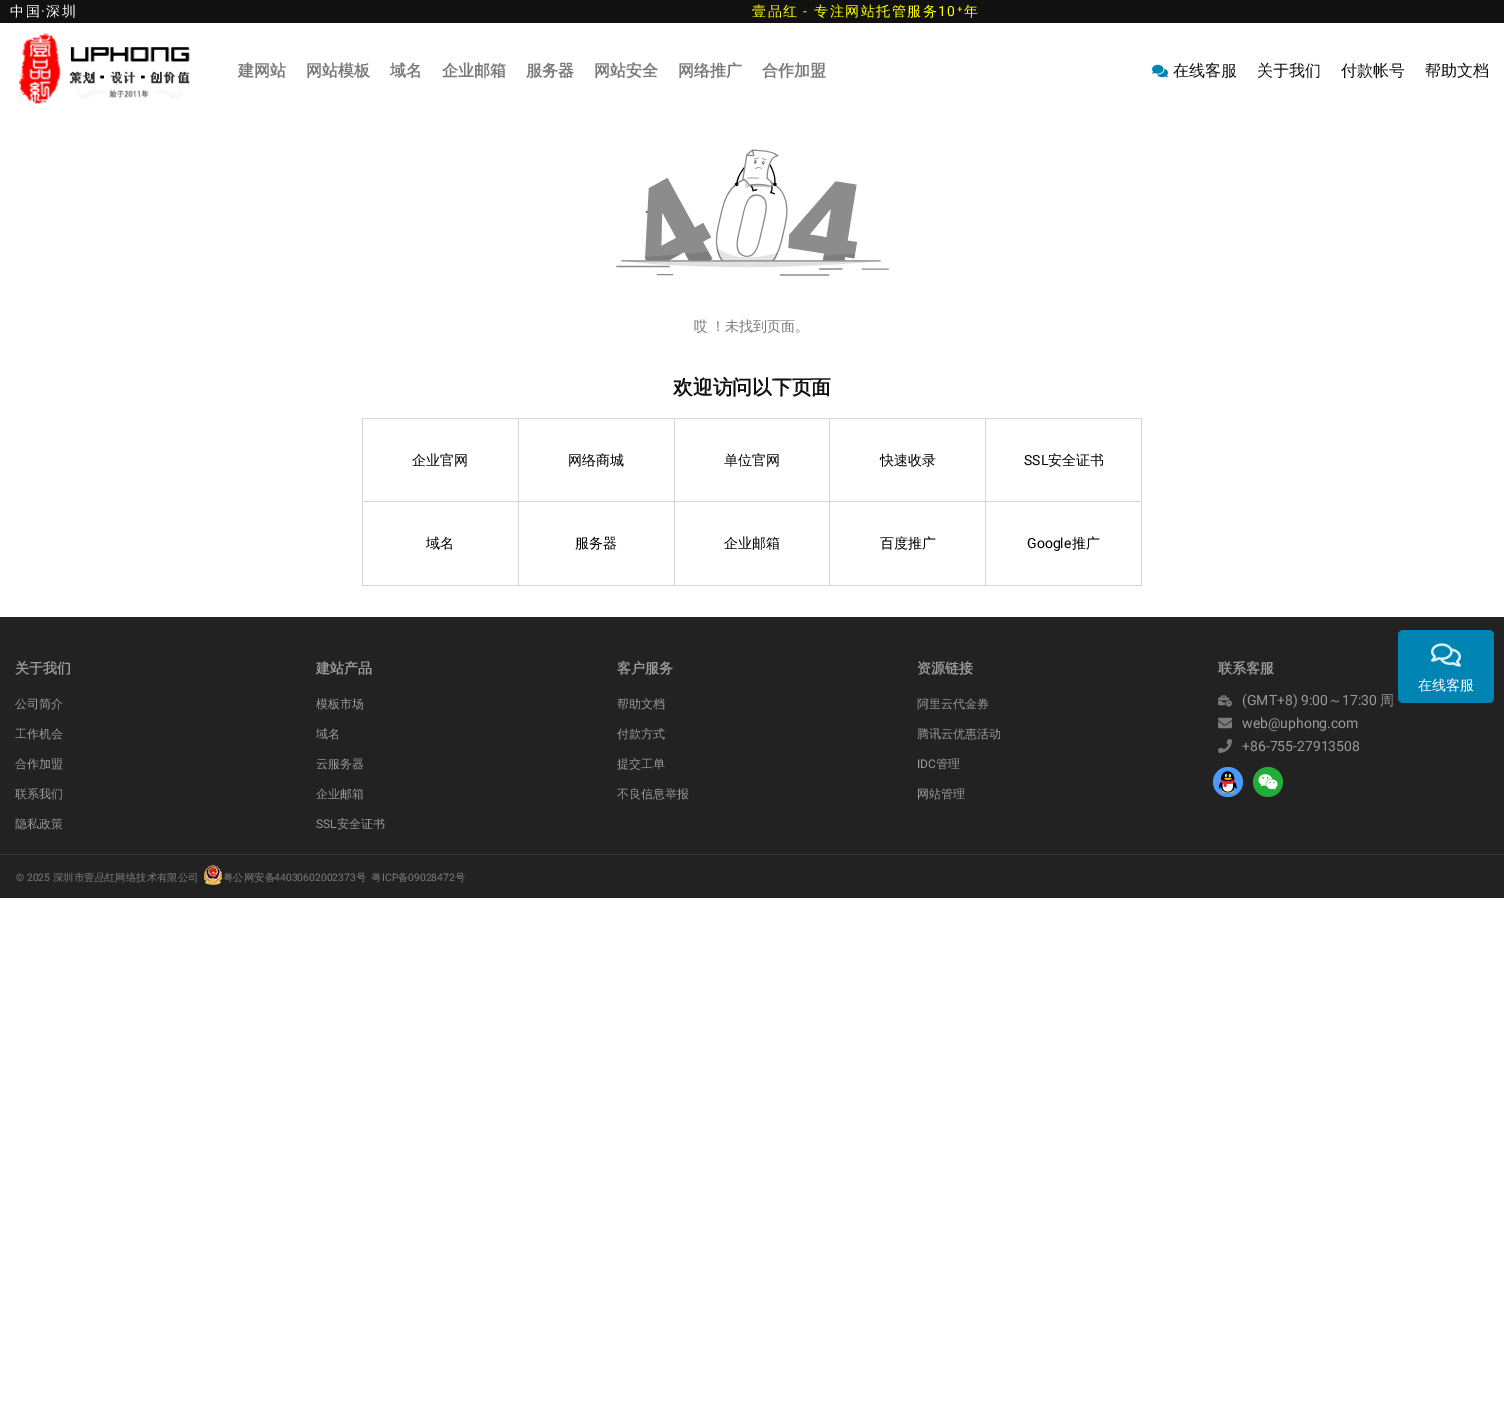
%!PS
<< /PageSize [1504 1409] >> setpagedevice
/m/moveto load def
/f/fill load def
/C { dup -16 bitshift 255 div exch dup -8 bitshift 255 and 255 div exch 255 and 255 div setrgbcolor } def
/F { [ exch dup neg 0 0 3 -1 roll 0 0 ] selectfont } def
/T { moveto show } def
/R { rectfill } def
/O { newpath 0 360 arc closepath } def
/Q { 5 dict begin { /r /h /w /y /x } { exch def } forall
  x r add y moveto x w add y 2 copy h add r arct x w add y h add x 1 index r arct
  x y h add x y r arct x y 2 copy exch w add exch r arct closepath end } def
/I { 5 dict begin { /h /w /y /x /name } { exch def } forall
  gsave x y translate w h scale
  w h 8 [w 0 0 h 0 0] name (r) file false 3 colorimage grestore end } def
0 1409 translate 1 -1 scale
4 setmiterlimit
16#FFFFFF C
0 0 1504 1409 R
16#111111 C
0 0 1504 23 R
/WenQuanYiZenHei-Medium 14 F
16#FFFFFF C
10 16 m 1.5 0 (中国) ashow
/Roboto-Regular 14 F
41 16 m 1.5 0 (·) ashow
/WenQuanYiZenHei-Medium 14 F
46 16 m 1.5 0 (深圳) ashow
16#FFFF00 C
752 16 m 1.5 0 (壹品红) ashow
/Roboto-Regular 14 F
803 16 m 1.5 0 (-) ashow
/WenQuanYiZenHei-Medium 14 F
814 16 m 1.5 0 (专注网站托管服务) ashow
/Roboto-Regular 14 F
938 16 m 1.5 0 (10⁺) ashow
/WenQuanYiZenHei-Medium 14 F
964 16 m 1.5 0 (年) ashow
(1.rgb) 18 33 172 71 I
/WenQuanYiZenHei-Bold 16 F
16#7A7A7A C
(建网站) 238 76 T
(网站模板) 306 76 T
(域名) 390 76 T
(企业邮箱) 442 76 T
(服务器) 526 76 T
(网站安全) 594 76 T
(网络推广) 678 76 T
(合作加盟) 762 76 T
(2.rgb) 1152 64 16 14 I
/WenQuanYiZenHei-Medium 16 F
16#111111 C
(在线客服) 1173 76 T
(关于我们) 1257 76 T
(付款帐号) 1341 76 T
(帮助文档) 1425 76 T
(3.rgb) 616 149 273 127 I
/WenQuanYiZenHei-Medium 14 F
16#7A7A7A C
694 331 m -1 0 32 (哎 ！未找到页面。) widthshow
/WenQuanYiZenHei-Bold 19.75 F
16#111111 C
(欢迎访问以下页面) 673 394 T
16#D6D6D6 C
362 418 780 168 R
16#FFFFFF C
363 419 155 82 R
/WenQuanYiZenHei-Medium 14 F
16#000000 C
(企业官网) 412 465 T
16#FFFFFF C
519 419 155 82 R
16#000000 C
(网络商城) 568 465 T
16#FFFFFF C
675 419 154 82 R
16#000000 C
(单位官网) 724 465 T
16#FFFFFF C
830 419 155 82 R
16#000000 C
(快速收录) 880 465 T
16#FFFFFF C
986 419 155 82 R
/Roboto-Regular 14 F
16#000000 C
(SSL) 1024 465 T
/WenQuanYiZenHei-Medium 14 F
(安全证书) 1048 465 T
16#FFFFFF C
363 502 155 83 R
16#000000 C
(域名) 426 548 T
16#FFFFFF C
519 502 155 83 R
16#000000 C
(服务器) 575 548 T
16#FFFFFF C
675 502 154 83 R
16#000000 C
(企业邮箱) 724 548 T
16#FFFFFF C
830 502 155 83 R
16#000000 C
(百度推广) 880 548 T
16#FFFFFF C
986 502 155 83 R
/Roboto-Regular 14 F
16#000000 C
(Google) 1027 548 T
/WenQuanYiZenHei-Medium 14 F
(推广) 1072 548 T
16#222222 C
0 617 1504 237 R
/WenQuanYiZenHei-Bold 14 F
16#999999 C
(关于我们) 15 673 T
/WenQuanYiZenHei-Medium 12 F
(公司简介) 15 708 T
(工作机会) 15 738 T
(合作加盟) 15 768 T
(联系我们) 15 798 T
(隐私政策) 15 828 T
/WenQuanYiZenHei-Bold 14 F
(建站产品) 316 673 T
/WenQuanYiZenHei-Medium 12 F
(模板市场) 316 708 T
(域名) 316 738 T
(云服务器) 316 768 T
(企业邮箱) 316 798 T
/Roboto-Regular 12 F
(SSL) 316 828 T
/WenQuanYiZenHei-Medium 12 F
(安全证书) 337 828 T
/WenQuanYiZenHei-Bold 14 F
(客户服务) 617 673 T
/WenQuanYiZenHei-Medium 12 F
(帮助文档) 617 708 T
(付款方式) 617 738 T
(提交工单) 617 768 T
(不良信息举报) 617 798 T
/WenQuanYiZenHei-Bold 14 F
(资源链接) 917 673 T
/WenQuanYiZenHei-Medium 12 F
(阿里云代金券) 917 708 T
(腾讯云优惠活动) 917 738 T
/Roboto-Regular 12 F
(IDC) 917 768 T
/WenQuanYiZenHei-Medium 12 F
(管理) 936 768 T
(网站管理) 917 798 T
/WenQuanYiZenHei-Bold 14 F
(联系客服) 1218 673 T
16#0084B4 C
1398 630 96 73 5 Q f
(4.rgb) 1431 643 30 24 I
/WenQuanYiZenHei-Medium 14 F
16#FFFFFF C
(在线客服) 1418 690 T
(5.rgb) 1218 695 14 12 I
/Roboto-Regular 14 F
16#999999 C
(\(GMT+8\) 9:00) 1242 705 T
/WenQuanYiZenHei-Medium 14 F
(～) 1328 705 T
/Roboto-Regular 14 F
(17:30) 1342 705 T
/WenQuanYiZenHei-Medium 14 F
(周) 1380 705 T
(6.rgb) 1218 717 14 12 I
/Roboto-Regular 14 F
(web@uphong.com) 1242 728 T
(7.rgb) 1218 739 14 14 I
(+86-755-27913508) 1242 751 T
16#4A9AFD C
1228 782 15 O f
(8.rgb) 1218 771 19 22 I
16#22AC38 C
1268 782 15 O f
(9.rgb) 1258 774 20 16 I
16#222222 C
0 855 1504 43 R
16#333333 C
0 854 1504 1 R
/Roboto-Regular 10.4 F
16#7A7A7A C
(© 2025) 16 881 T
/WenQuanYiZenHei-Medium 10.4 F
(深圳市壹品红网络技术有限公司) 53 881 T
(10.rgb) 204 865 18 20 I
(粤公网安备) 223 881 T
/Roboto-Regular 10.4 F
(44030602002373) 274 881 T
/WenQuanYiZenHei-Medium 10.4 F
(号) 356 881 T
(粤) 371 881 T
/Roboto-Regular 10.4 F
(ICP) 382 881 T
/WenQuanYiZenHei-Medium 10.4 F
(备) 398 881 T
/Roboto-Regular 10.4 F
(09028472) 408 881 T
/WenQuanYiZenHei-Medium 10.4 F
(号) 455 881 T
showpage
